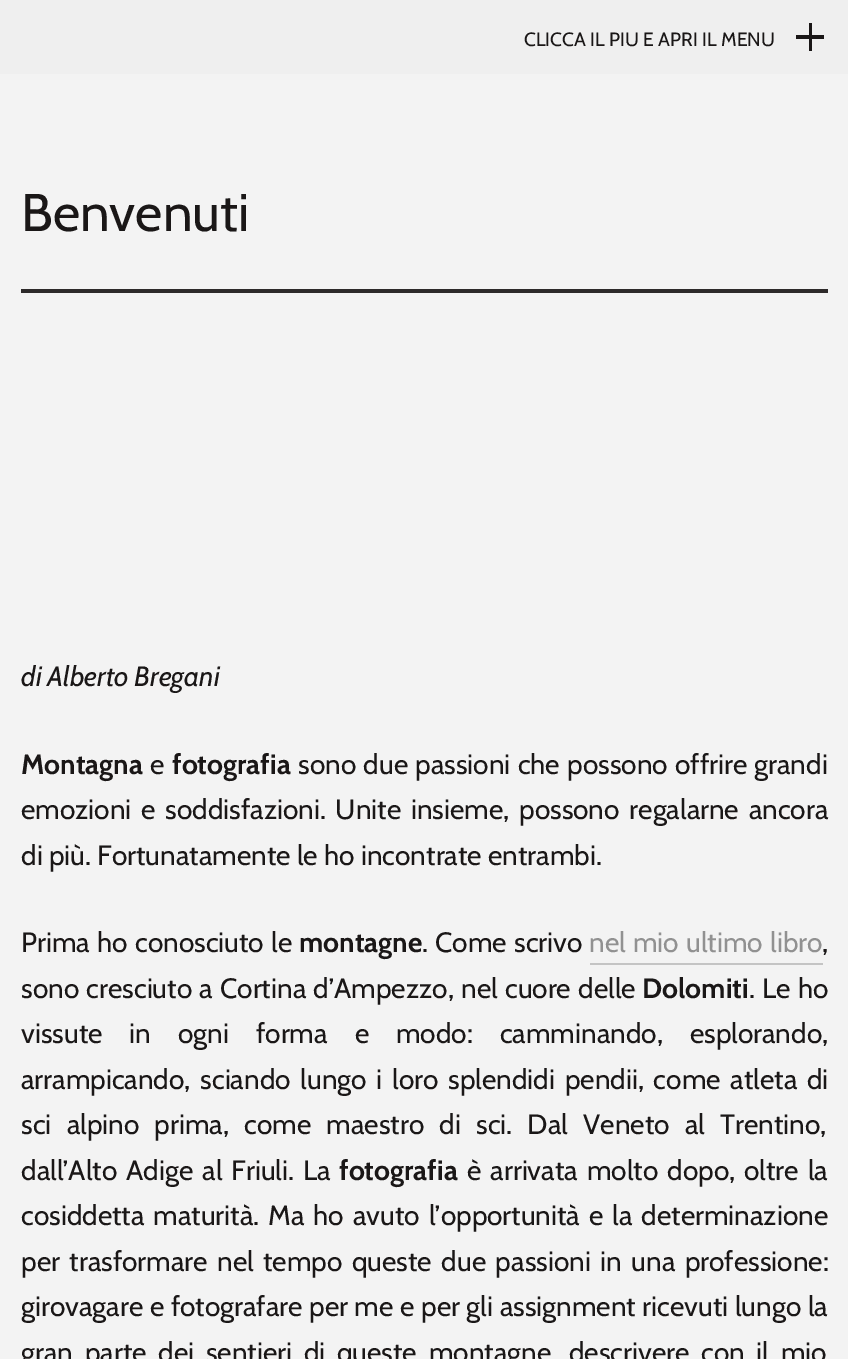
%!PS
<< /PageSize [848 1359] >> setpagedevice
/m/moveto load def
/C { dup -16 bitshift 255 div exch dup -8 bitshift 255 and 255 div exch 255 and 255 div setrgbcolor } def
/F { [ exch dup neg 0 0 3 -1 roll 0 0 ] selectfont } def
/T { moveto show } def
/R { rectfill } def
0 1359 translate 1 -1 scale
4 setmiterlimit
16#F3F3F3 C
0 0 848 1359 R
16#EFEFEF C
0 0 848 74 R
/Cabin-Regular 19.25 F
16#1A1717 C
(CLICCA IL PIU E APRI IL MENU) 524 46 T
809 23 3 28 R
796 35 28 4 R
/Cabin-Regular 53 F
(Benvenuti) 21 231 T
16#2D2A2A C
21 289 807 4 R
/Cabin-Italic 28 F
16#1A1717 C
(di Alberto Bregani) 21 686 T
/Cabin-Bold 28 F
(Montagna) 21 774 T
/Cabin-Regular 28 F
(e) 150 774 T
/Cabin-Bold 28 F
(fotografia) 172 774 T
/Cabin-Regular 28 F
298 774 m 1 0 32 (sono due passioni che possono offrire grandi) widthshow
21 819 m 3.5 0 32 (emozioni e soddisfazioni. Unite insieme, possono regalarne ancora) widthshow
(di più. Fortunatamente le ho incontrate entrambi.) 21 865 T
21 952 m 1 0 32 (Prima ho conosciuto le) widthshow
/Cabin-Bold 28 F
(montagne) 299 952 T
/Cabin-Regular 28 F
422 952 m 1 0 32 (. Come scrivo) widthshow
16#919191 C
589 952 m 1 0 32 (nel mio ultimo libro) widthshow
16#C4C4C4 C
590 963 233 2 R
16#1A1717 C
(,) 822 952 T
21 998 m 1 0 32 (sono cresciuto a Cortina d’Ampezzo, nel cuore delle) widthshow
/Cabin-Bold 28 F
(Dolomiti) 642 998 T
/Cabin-Regular 28 F
749 998 m 1 0 32 (. Le ho) widthshow
21 1043 m 20.75 0 32 (vissute in ogni forma e modo: camminando, esplorando,) widthshow
21 1089 m 3.5 0 32 (arrampicando, sciando lungo i loro splendidi pendii, come atleta di) widthshow
21 1134 m 9 0 32 (sci alpino prima, come maestro di sci. Dal Veneto al Trentino,) widthshow
21 1180 m 2.75 0 32 (dall’Alto Adige al Friuli. La) widthshow
/Cabin-Bold 28 F
(fotografia) 339 1180 T
/Cabin-Regular 28 F
467 1180 m 2.75 0 32 (è arrivata molto dopo, oltre la) widthshow
21 1225 m 2.75 0 32 (cosiddetta maturità. Ma ho avuto l’opportunità e la determinazione) widthshow
21 1271 m 3.25 0 32 (per trasformare nel tempo queste due passioni in una professione:) widthshow
21 1316 m .4 0 32 (girovagare e fotografare per me e per gli assignment ricevuti lungo la) widthshow
21 1362 m 5.5 0 32 (gran parte dei sentieri di queste montagne, descrivere con il mio) widthshow
showpage
